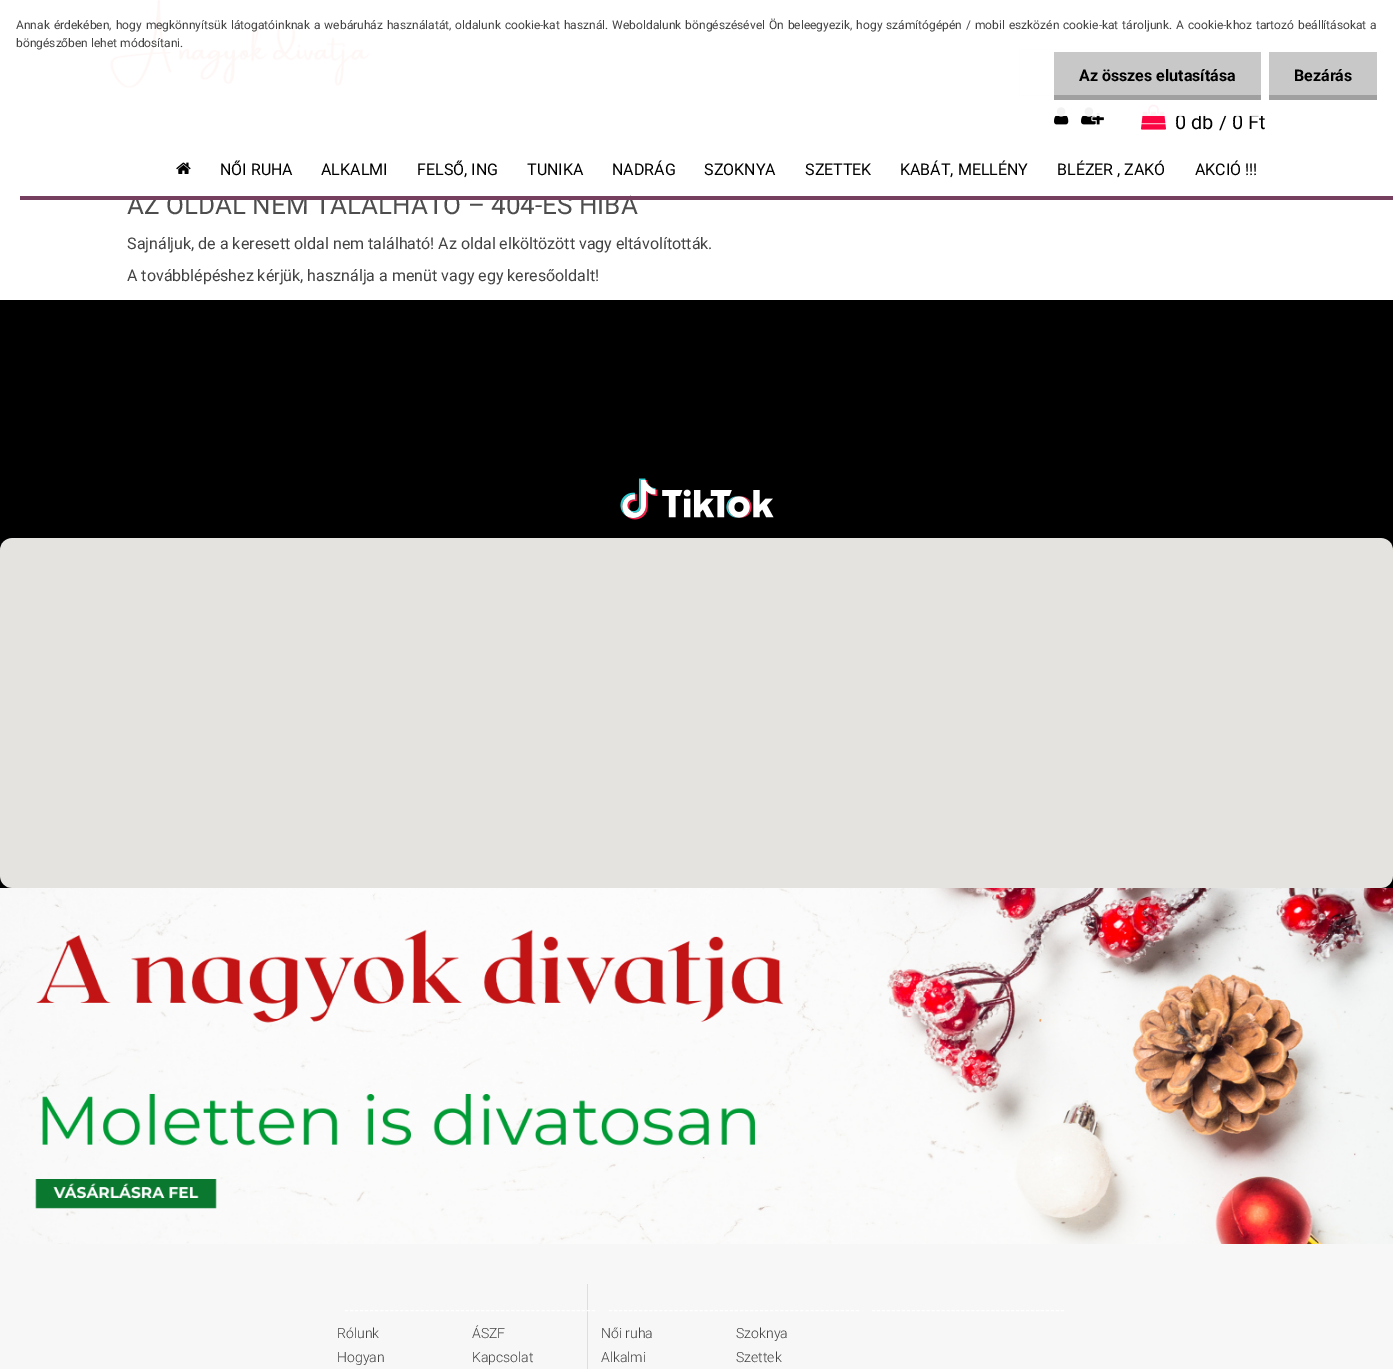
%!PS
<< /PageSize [1393 1369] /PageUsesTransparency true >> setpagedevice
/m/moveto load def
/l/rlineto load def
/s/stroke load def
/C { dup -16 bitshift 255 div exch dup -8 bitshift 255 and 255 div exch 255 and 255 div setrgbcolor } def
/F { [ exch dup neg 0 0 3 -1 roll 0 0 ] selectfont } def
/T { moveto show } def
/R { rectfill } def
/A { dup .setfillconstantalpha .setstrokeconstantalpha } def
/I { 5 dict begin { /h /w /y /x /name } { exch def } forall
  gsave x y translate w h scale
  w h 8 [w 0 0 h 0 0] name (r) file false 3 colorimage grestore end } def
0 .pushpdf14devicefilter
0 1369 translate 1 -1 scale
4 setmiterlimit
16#F7F7F7 C
0 0 1393 1369 R
16#FFFFFF C
0 0 1393 300 R
(1.rgb) 110 0 260 89 I
16#EDEDED C
1019.5 49.5 243 46 rectstroke
(2.rgb) 1054 107 15 18 I
(3.rgb) 1081 107 23 18 I
(4.rgb) 1141 104 25 26 I
/Roboto-Regular 20 F
16#000000 C
(0 db / 0 Ft) 1175 129 T
0.95 A
16#FFFFFF C
110 0 1154 116 R
/Roboto-Regular 12 F
1 A
16#424242 C
16 29 m 1 0 32 (Annak érdekében, hogy megkönnyítsük látogatóinknak a webáruház használatát, oldalunk cookie-kat használ. Weboldalunk böngészésével Ön beleegyezik, hogy számítógépén / mobil eszközén cookie-kat tároljunk. A cookie-khoz tartozó beállításokat a) widthshow
(böngészőben lehet módosítani.) 16 47 T
16#C8C8C8 C
1054 52 207 43 R
16#A0A0A0 C
1054 95 207 5 R
/Roboto-Bold 16 F
16#000000 C
(Az összes elutasítása) 1079 81 T
16#C8C8C8 C
1269 52 108 43 R
16#A0A0A0 C
1269 95 108 5 R
16#000000 C
(Bezárás) 1294 81 T
/Roboto-Regular 26 F
16#4D4D4D C
(AZ OLDAL NEM TALÁLHATÓ – 404-ES HIBA) 127 214 T
16#FFFFFF C
133 190 497 6 R
16#763E5F C
20 196 1373 4 R
(5.rgb) 176 162 15 12 I
/Roboto-Regular 16 F
16#000000 C
(NŐI RUHA) 220 175 T
(ALKALMI) 321 175 T
(FELSŐ, ING) 417 175 T
(TUNIKA) 527 175 T
(NADRÁG) 612 175 T
(SZOKNYA) 704 175 T
(SZETTEK) 805 175 T
(KABÁT, MELLÉNY) 900 175 T
(BLÉZER , ZAKÓ) 1057 175 T
(AKCIÓ !!!) 1195 175 T
16#424242 C
(Sajnáljuk, de a keresett oldal nem található! Az oldal elköltözött vagy eltávolították.) 127 249 T
(A továbblépéshez kérjük, használja a menüt vagy egy keresőoldalt!) 127 281 T
16#000000 C
0 300 1393 588 R
(6.rgb) 620 478 154 42 I
(7.rgb) 0 538 1393 350 I
(8.rgb) 0 888 1393 356 I
16#FFFFFF C
[3 1.97] 0 setdash
872 1310.5 m 192 0 l s
16#DEDEDE C
587 1284 1 85 R
16#FFFFFF C
[3 2.04] 0 setdash
345 1310.5 m 250 0 l s
/Roboto-Light 14 F
16#424242 C
(Rólunk) 337 1338 T
(ÁSZF) 472 1338 T
(Hogyan) 337 1362 T
(Kapcsolat) 472 1362 T
16#FFFFFF C
609 1310.5 m 250 0 l s
16#424242 C
(Női ruha) 601 1338 T
(Szoknya) 736 1338 T
(Alkalmi) 601 1362 T
(Szettek) 736 1362 T
.poppdf14devicefilter showpage
